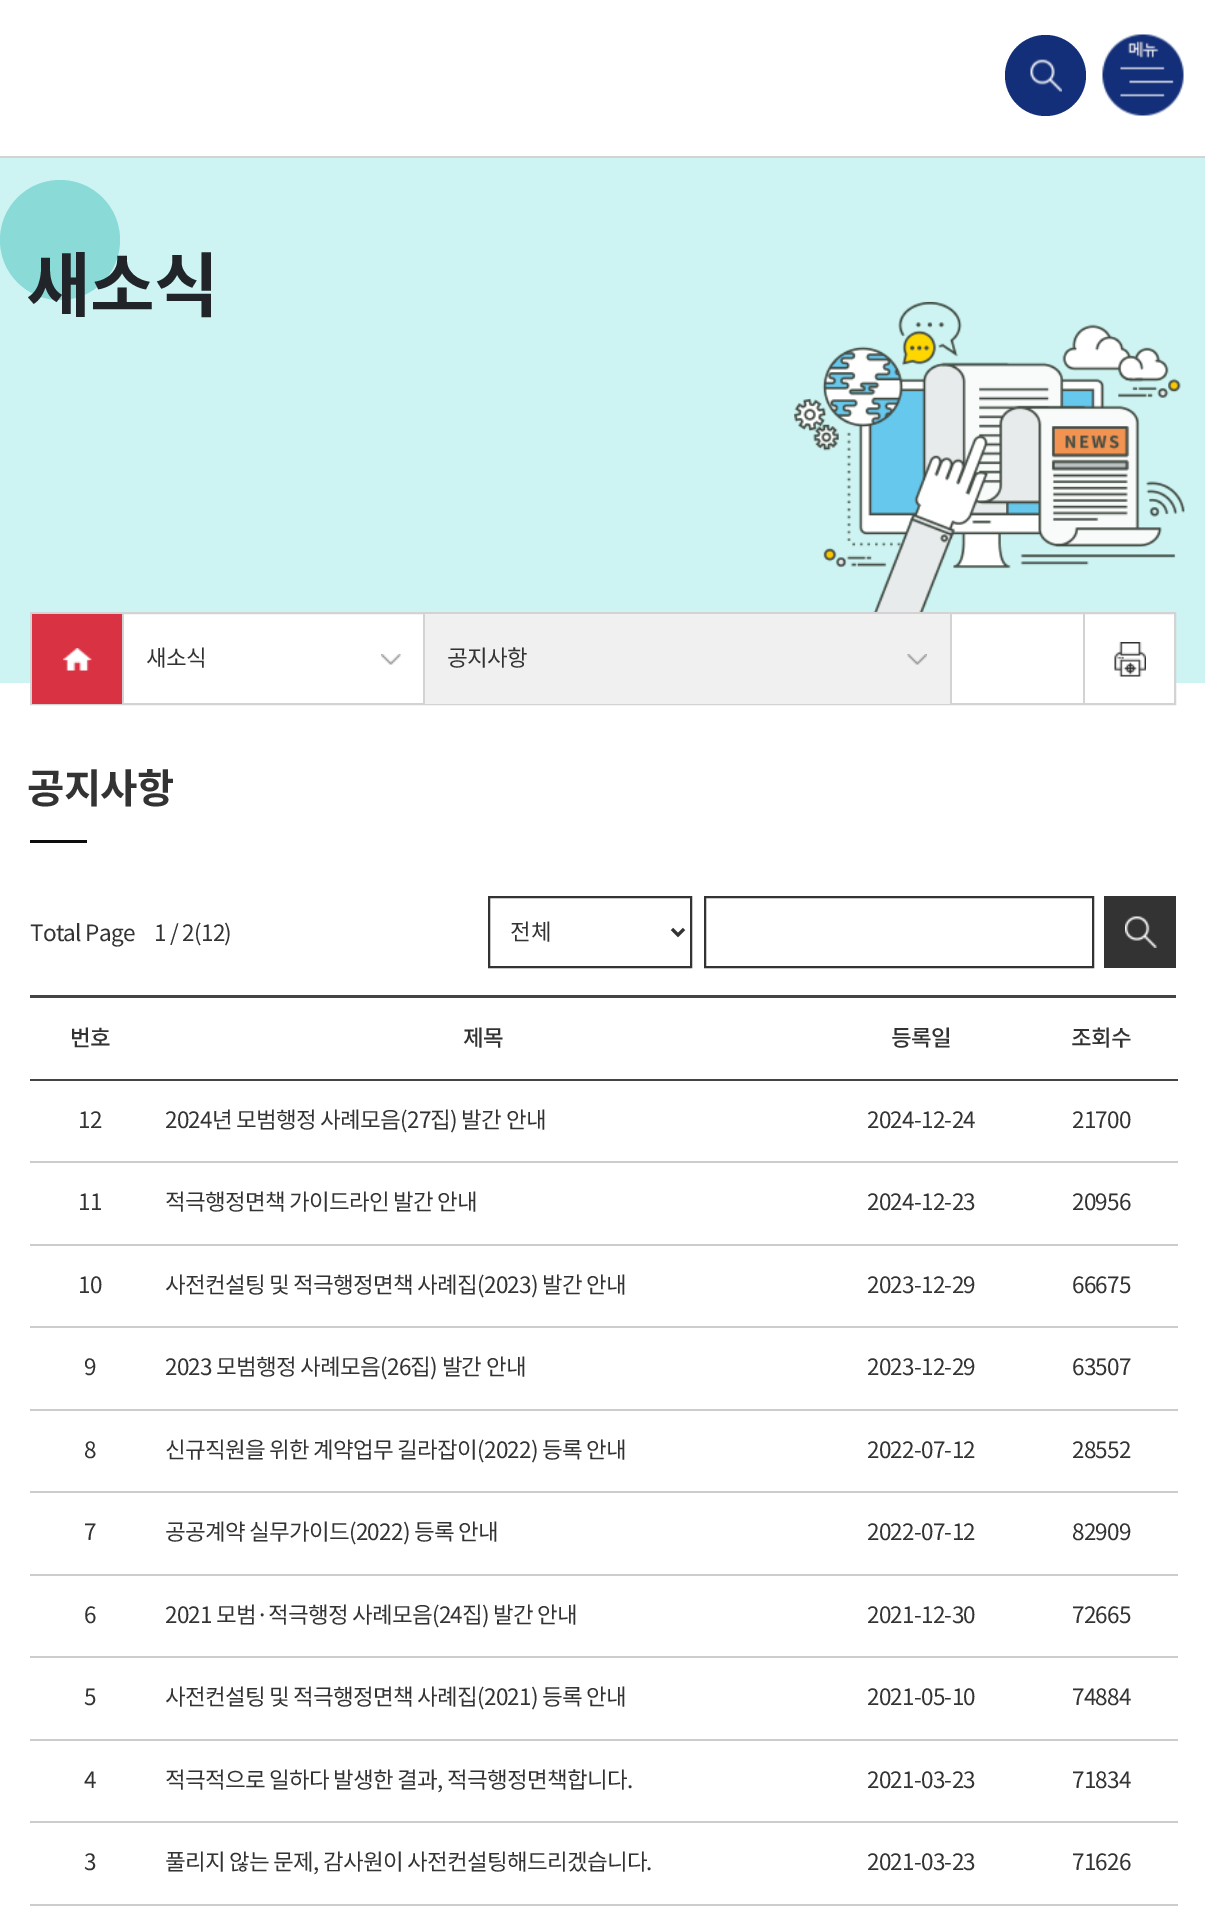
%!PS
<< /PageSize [1205 1914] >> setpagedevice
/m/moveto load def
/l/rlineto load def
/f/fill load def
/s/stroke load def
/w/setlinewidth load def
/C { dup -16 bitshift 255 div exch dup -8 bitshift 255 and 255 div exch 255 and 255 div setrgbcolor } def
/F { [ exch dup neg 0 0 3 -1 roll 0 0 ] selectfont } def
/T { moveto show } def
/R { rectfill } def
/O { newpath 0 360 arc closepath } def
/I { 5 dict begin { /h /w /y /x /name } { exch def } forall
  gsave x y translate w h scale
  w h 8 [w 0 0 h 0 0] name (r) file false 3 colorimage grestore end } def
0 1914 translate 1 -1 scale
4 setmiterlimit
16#FFFFFF C
0 0 1205 1914 R
16#D3D3D3 C
0 156 1205 2 R
16#132F79 C
1045.5 75.5 40.5 O f
(1.rgb) 1030 59 32 33 I
(2.rgb) 1102 34 82 82 I
16#CDF4F2 C
0 158 1205 525 R
16#8ADBD7 C
60 240 60 O f
/NotoSansKR-Bold 70.5 F
16#212529 C
26 311 m -.75 0 (새소식) ashow
(3.rgb) 794 301 391 311 I
16#FFFFFF C
124 614 1050 69 R
16#D3D3D3 C
2 w
31 613 1144 91 rectstroke
122 614 2 90 R
16#D93242 C
32 614 90 90 R
(4.rgb) 63 648 29 23 I
16#D3D3D3 C
423 614 2 90 R
/NotoSansKR-Regular 22.5 F
16#333333 C
146 666 m -.75 0 (새소식) ashow
(5.rgb) 381 654 20 11 I
16#D3D3D3 C
950 614 2 90 R
16#F0F0F0 C
425 614 525 90 R
16#333333 C
447 666 m -.75 0 (공지사항) ashow
(6.rgb) 907 654 20 11 I
16#D3D3D3 C
1083 614 2 90 R
(7.rgb) 1114 642 32 35 I
/NotoSansKR-Bold 40.5 F
16#333333 C
27 803 m -.75 0 (공지사항) ashow
16#0D0D0D C
30 840 57 3 R
/NotoSansKR-Regular 22.5 F
16#333333 C
30 941 m -.75 0 (Total Page) ashow
154 941 m -.75 0 (1 / 2\(12\)) ashow
489 897 202 70 rectstroke
3 w
672 929 m 6 6 l 6 -6 l s
(전체) 510 940 T
2 w
705 897 388 70 rectstroke
1104 896 72 72 R
(8.rgb) 1125 916 32 32 I
16#444444 C
30 995 1146 3 R
/NotoSansKR-Medium 22.5 F
16#333333 C
70 1046 m -.75 0 (번호) ashow
463 1046 m -.75 0 (제목) ashow
891 1046 m -.75 0 (등록일) ashow
16#444444 C
30 1079 1148 2 R
16#333333 C
1071 1046 m -.75 0 (조회수) ashow
/NotoSansKR-Regular 22.5 F
78 1128 m -.75 0 (12) ashow
165 1128 m -.75 0 (2024년 모범행정 사례모음\(27집\) 발간 안내) ashow
867 1128 m -.75 0 (2024-12-24) ashow
16#CCCCCC C
30 1161 1148 2 R
16#333333 C
1072 1128 m -.75 0 (21700) ashow
78 1210 m -.75 0 (11) ashow
165 1210 m -.75 0 (적극행정면책 가이드라인 발간 안내) ashow
867 1210 m -.75 0 (2024-12-23) ashow
16#CCCCCC C
30 1244 1148 2 R
16#333333 C
1072 1210 m -.75 0 (20956) ashow
78 1293 m -.75 0 (10) ashow
165 1293 m -.75 0 (사전컨설팅 및 적극행정면책 사례집\(2023\) 발간 안내) ashow
867 1293 m -.75 0 (2023-12-29) ashow
16#CCCCCC C
30 1326 1148 2 R
16#333333 C
1072 1293 m -.75 0 (66675) ashow
84 1375 m -.75 0 (9) ashow
165 1375 m -.75 0 (2023 모범행정 사례모음\(26집\) 발간 안내) ashow
867 1375 m -.75 0 (2023-12-29) ashow
16#CCCCCC C
30 1409 1148 2 R
16#333333 C
1072 1375 m -.75 0 (63507) ashow
84 1458 m -.75 0 (8) ashow
165 1458 m -.75 0 (신규직원을 위한 계약업무 길라잡이\(2022\) 등록 안내) ashow
867 1458 m -.75 0 (2022-07-12) ashow
16#CCCCCC C
30 1491 1148 2 R
16#333333 C
1072 1458 m -.75 0 (28552) ashow
84 1540 m -.75 0 (7) ashow
165 1540 m -.75 0 (공공계약 실무가이드\(2022\) 등록 안내) ashow
867 1540 m -.75 0 (2022-07-12) ashow
16#CCCCCC C
30 1574 1148 2 R
16#333333 C
1072 1540 m -.75 0 (82909) ashow
84 1623 m -.75 0 (6) ashow
165 1623 m -.75 0 (2021 모범·적극행정 사례모음\(24집\) 발간 안내) ashow
867 1623 m -.75 0 (2021-12-30) ashow
16#CCCCCC C
30 1656 1148 2 R
16#333333 C
1072 1623 m -.75 0 (72665) ashow
84 1705 m -.75 0 (5) ashow
165 1705 m -.75 0 (사전컨설팅 및 적극행정면책 사례집\(2021\) 등록 안내) ashow
867 1705 m -.75 0 (2021-05-10) ashow
16#CCCCCC C
30 1739 1148 2 R
16#333333 C
1072 1705 m -.75 0 (74884) ashow
84 1788 m -.75 0 (4) ashow
165 1788 m -.75 0 (적극적으로 일하다 발생한 결과, 적극행정면책합니다.) ashow
867 1788 m -.75 0 (2021-03-23) ashow
16#CCCCCC C
30 1821 1148 2 R
16#333333 C
1072 1788 m -.75 0 (71834) ashow
84 1870 m -.75 0 (3) ashow
165 1870 m -.75 0 (풀리지 않는 문제, 감사원이 사전컨설팅해드리겠습니다.) ashow
867 1870 m -.75 0 (2021-03-23) ashow
16#CCCCCC C
30 1904 1148 2 R
16#333333 C
1072 1870 m -.75 0 (71626) ashow
showpage
